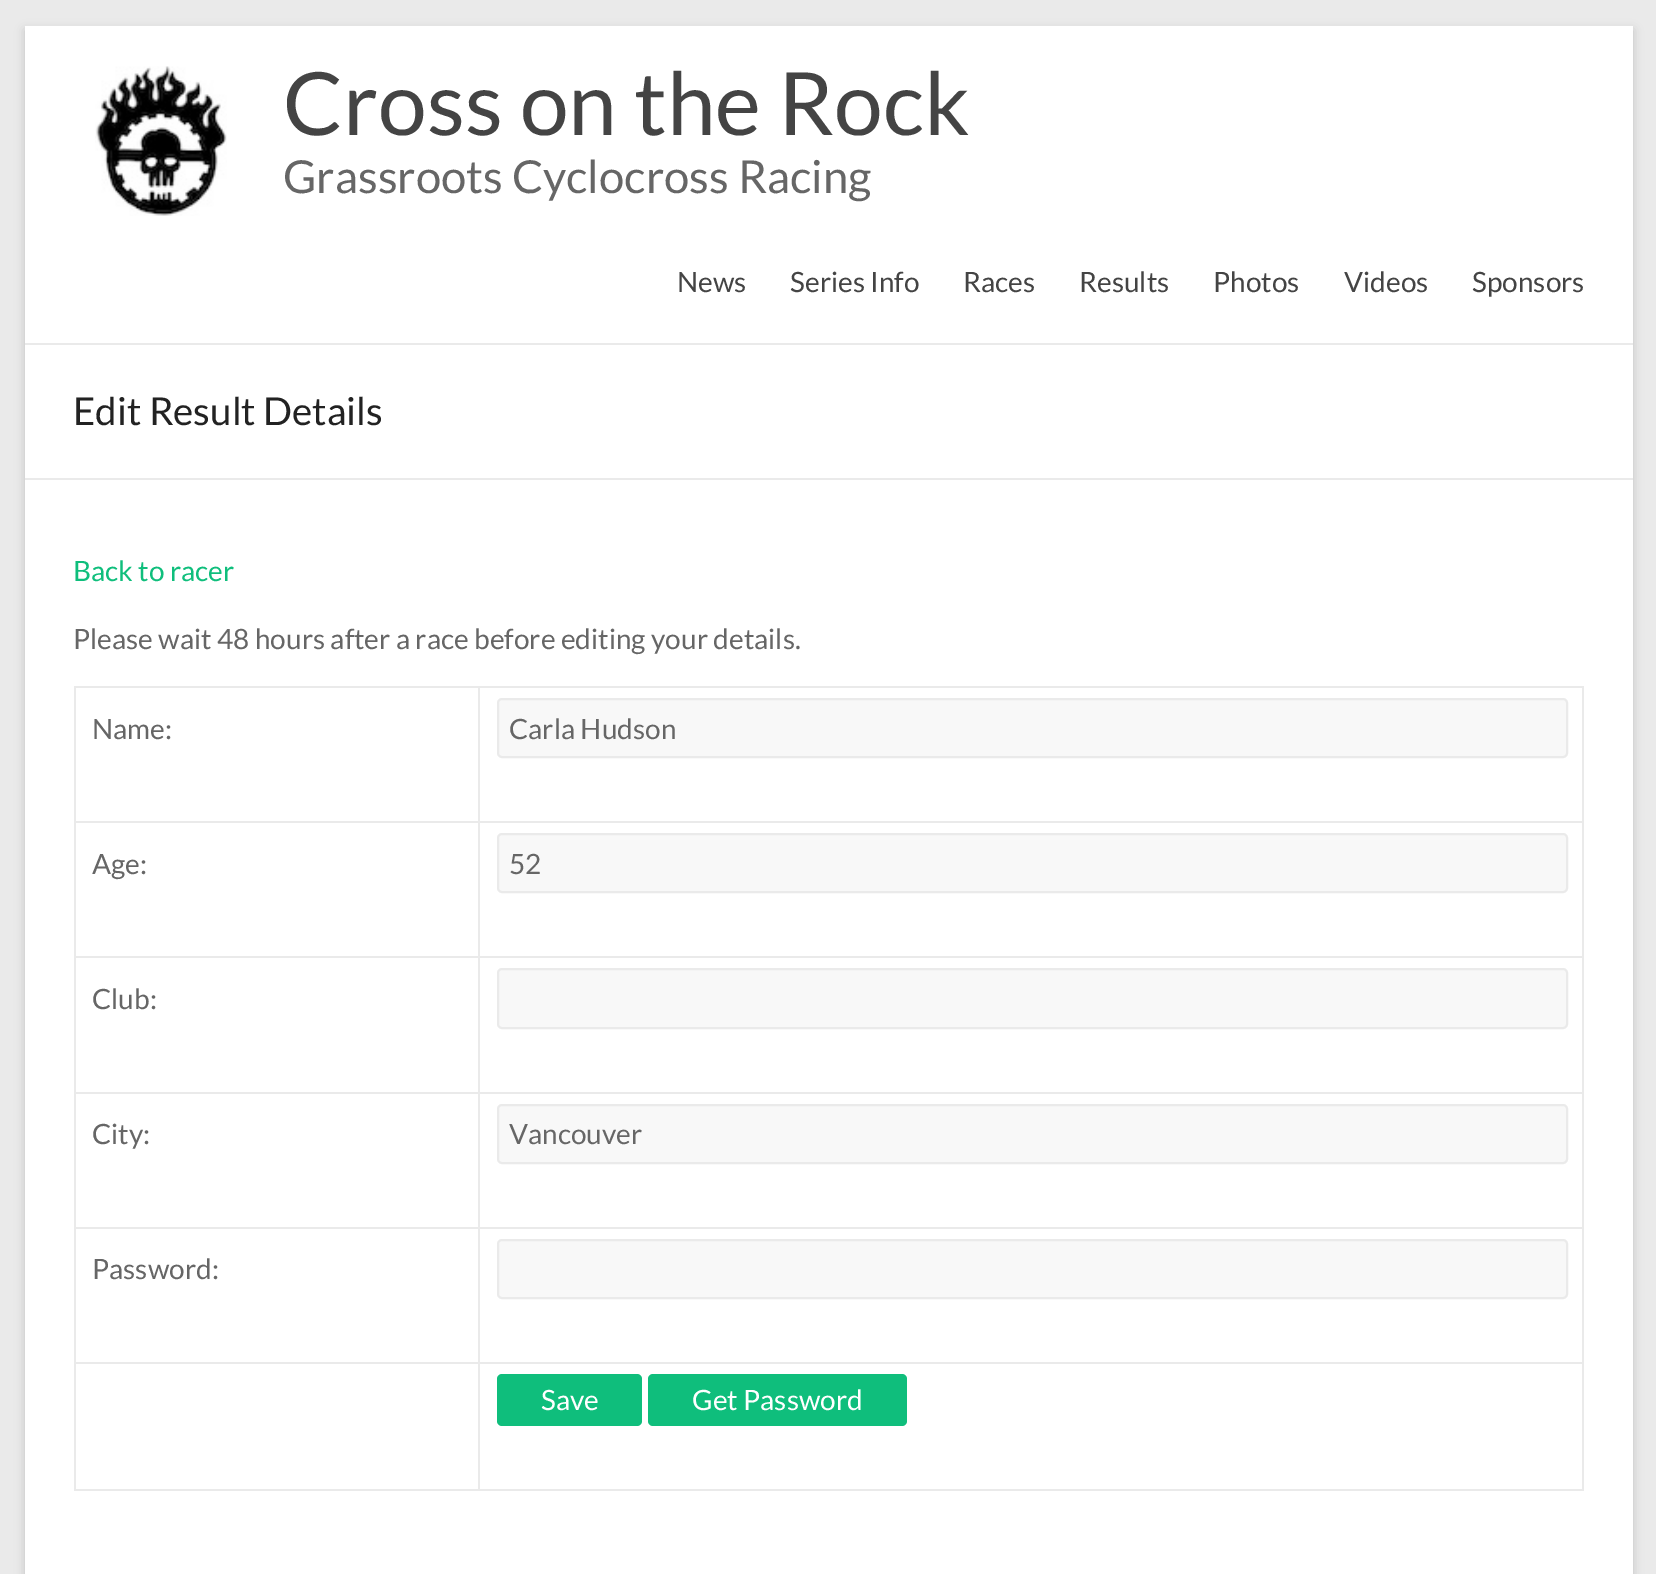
%!PS
<< /PageSize [1656 1574] /PageUsesTransparency true >> setpagedevice
/f/fill load def
/s/stroke load def
/q/gsave load def
/Q_/grestore load def
/w/setlinewidth load def
/C { dup -16 bitshift 255 div exch dup -8 bitshift 255 and 255 div exch 255 and 255 div setrgbcolor } def
/F { [ exch dup neg 0 0 3 -1 roll 0 0 ] selectfont } def
/T { moveto show } def
/R { rectfill } def
/A { dup .setfillconstantalpha .setstrokeconstantalpha } def
/Q { 5 dict begin { /r /h /w /y /x } { exch def } forall
  x r add y moveto x w add y 2 copy h add r arct x w add y h add x 1 index r arct
  x y h add x y r arct x y 2 copy exch w add exch r arct closepath end } def
/S { 12 dict begin { /a /b /q /h /w /y /x } { exch def } forall gsave /was 0 def
  9 -2 -9 { dup b mul 4 div /e exch def 1 sub .425 mul 2.718 exch exp 1 add a .99 .min exch div /now exch def
    1 1 now sub 1 was sub div sub A /was now def
    w h .min e 2 mul add 0 gt { x e sub y e sub w e 2 mul add h e 2 mul add
      q e add b .6 mul add w h .min 2 div e add .min 0 .max Q fill } if } for grestore end } def
/I { 5 dict begin { /h /w /y /x /name } { exch def } forall
  gsave x y translate w h scale
  w h 8 [w 0 0 h 0 0] name (r) file false 3 colorimage grestore end } def
0 .pushpdf14devicefilter
0 1574 translate 1 -1 scale
4 setmiterlimit
16#EAEAEA C
0 0 1656 1574 R
16#646464 C
25 30 1608 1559 0 5 .3 S
16#FFFFFF C
25 26 1608 1548 R
16#EAEAEA C
25 343 1608 2 R
(1.rgb) 95 66 132 150 I
/Lato-Regular 87.5 F
16#444444 C
(Cross on the Rock) 283 135 T
/Lato-Regular 45.5 F
16#666666 C
(Grassroots Cyclocross Racing) 283 193 T
/Lato-Regular 28 F
16#444444 C
(News) 677 292 T
(Series Info) 790 292 T
(Races) 963 292 T
(Results) 1079 292 T
(Photos) 1213 292 T
(Videos) 1344 292 T
(Sponsors) 1472 292 T
16#EAEAEA C
25 478 1608 2 R
/Lato-Regular 38.5 F
16#222222 C
(Edit Result Details) 73 425 T
/Lato-Regular 28 F
16#0FBE7C C
(Back to racer) 73 581 T
16#666666 C
(Please wait 48 hours after a race before editing your details.) 73 649 T
16#EAEAEA C
478 686 1106 2 R
478 821 1106 2 R
478 956 1106 2 R
478 1092 1106 2 R
478 1227 1106 2 R
478 1362 1106 2 R
1582 1362 2 129 R
478 1489 1106 2 R
478 1362 2 129 R
74 1362 406 2 R
478 1227 2 136 R
74 1227 406 2 R
478 1092 2 137 R
74 1092 406 2 R
478 956 2 138 R
74 956 406 2 R
478 821 2 136 R
74 821 406 2 R
478 686 2 137 R
74 686 406 2 R
74 1489 406 2 R
74 1362 2 129 R
74 1227 2 136 R
74 1092 2 137 R
74 956 2 138 R
74 821 2 136 R
74 686 2 137 R
16#666666 C
(Name:) 92 739 T
16#EAEAEA C
1582 1227 2 136 R
1582 1092 2 137 R
1582 956 2 138 R
1582 821 2 136 R
1582 686 2 137 R
16#F8F8F8 C
498 699 1069 58 4 Q q f Q_
16#EAEAEA C
2 w
s
16#666666 C
(Carla Hudson) 509 739 T
(Age:) 92 874 T
16#F8F8F8 C
498 834 1069 58 4 Q q f Q_
16#EAEAEA C
s
16#666666 C
(52) 509 874 T
(Club:) 92 1009 T
16#F8F8F8 C
498 969 1069 59 4 Q q f Q_
16#EAEAEA C
s
16#666666 C
(City:) 92 1144 T
16#F8F8F8 C
498 1105 1069 58 4 Q q f Q_
16#EAEAEA C
s
16#666666 C
(Vancouver) 509 1144 T
(Password:) 92 1279 T
16#F8F8F8 C
498 1240 1069 58 4 Q q f Q_
16#EAEAEA C
s
16#0FBE7C C
497 1374 145 52 5 Q f
16#FFFFFF C
(Save) 541 1410 T
16#0FBE7C C
648 1374 259 52 5 Q f
16#FFFFFF C
(Get Password) 692 1410 T
.poppdf14devicefilter showpage
